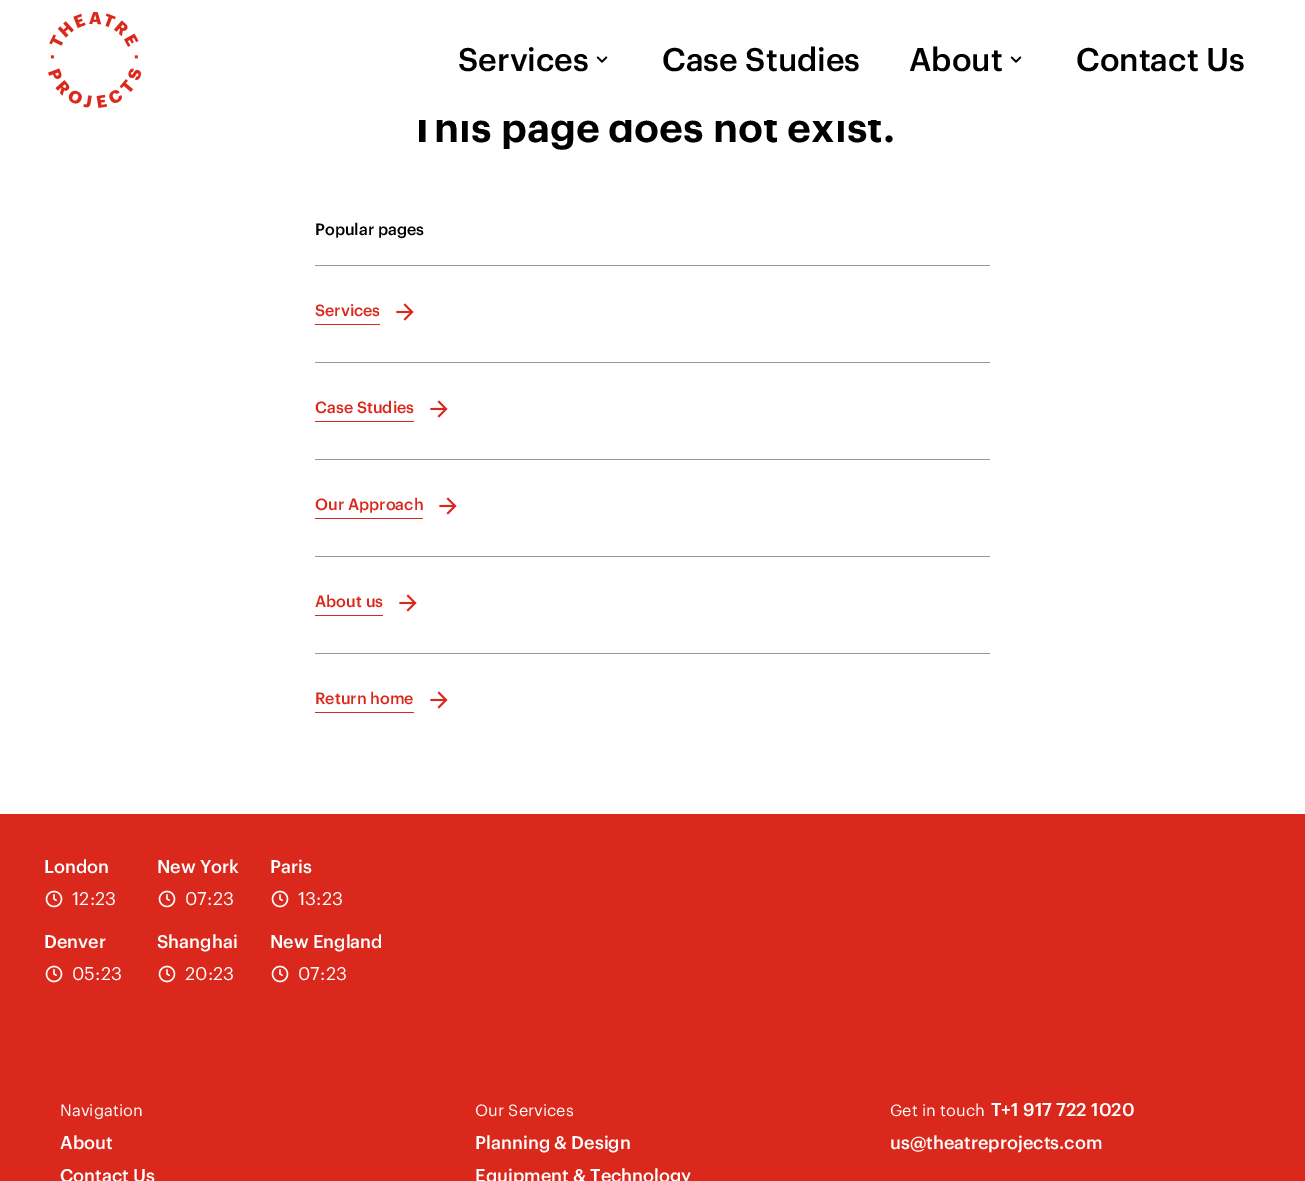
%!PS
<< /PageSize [1305 1181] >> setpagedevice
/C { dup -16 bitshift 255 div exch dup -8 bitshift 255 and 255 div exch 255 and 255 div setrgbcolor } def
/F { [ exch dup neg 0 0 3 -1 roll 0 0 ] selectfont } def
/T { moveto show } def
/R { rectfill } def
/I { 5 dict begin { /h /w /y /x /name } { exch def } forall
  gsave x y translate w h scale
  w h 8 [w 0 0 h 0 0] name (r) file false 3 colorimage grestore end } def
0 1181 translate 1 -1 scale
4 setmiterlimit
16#FFFFFF C
0 0 1305 1181 R
/Graphik-SemiBold 40 F
16#000000 C
(This page does not exist.) 410 142 T
16#FFFFFF C
411 111 466 9 R
(1.rgb) 48 12 93 96 I
/Graphik-Medium 32 F
16#000000 C
(Services) 458 71 T
(2.rgb) 596 56 12 7 I
(Case Studies) 662 71 T
(About) 909 71 T
(2.rgb) 1010 56 12 7 I
(Contact Us) 1076 71 T
/Graphik-Medium 16 F
(Popular pages) 315 235 T
16#999999 C
315 265 675 1 R
16#DA291C C
(Services) 315 316 T
315 324 65 1 R
(3.rgb) 396 303 18 18 I
16#999999 C
315 362 675 1 R
16#DA291C C
(Case Studies) 315 413 T
315 421 99 1 R
(3.rgb) 430 400 18 18 I
16#999999 C
315 459 675 1 R
16#DA291C C
(Our Approach) 315 510 T
315 518 108 1 R
(3.rgb) 439 497 18 18 I
16#999999 C
315 556 675 1 R
16#DA291C C
(About us) 315 607 T
315 615 68 1 R
(3.rgb) 399 594 18 18 I
16#999999 C
315 653 675 1 R
16#DA291C C
(Return home) 315 704 T
315 712 99 1 R
(3.rgb) 430 691 18 18 I
0 814 1305 367 R
/Graphik-Medium 18 F
16#FFFFFF C
(London) 44 873 T
(4.rgb) 45 890 18 18 I
/Graphik-Regular 18 F
(12:23) 72 905 T
/Graphik-Medium 18 F
(New York) 157 873 T
(4.rgb) 158 890 18 18 I
/Graphik-Regular 18 F
(07:23) 185 905 T
/Graphik-Medium 18 F
(Paris) 270 873 T
(4.rgb) 271 890 18 18 I
/Graphik-Regular 18 F
(13:23) 298 905 T
/Graphik-Medium 18 F
(Denver) 44 948 T
(4.rgb) 45 965 18 18 I
/Graphik-Regular 18 F
(05:23) 72 980 T
/Graphik-Medium 18 F
(Shanghai) 157 948 T
(4.rgb) 158 965 18 18 I
/Graphik-Regular 18 F
(20:23) 185 980 T
/Graphik-Medium 18 F
(New England) 270 948 T
(4.rgb) 271 965 18 18 I
/Graphik-Regular 18 F
(07:23) 298 980 T
/Graphik-Regular 16 F
(Navigation) 60 1116 T
/Graphik-Medium 18 F
(About) 60 1149 T
(Contact Us) 60 1182 T
/Graphik-Regular 16 F
(Our Services) 475 1116 T
/Graphik-Medium 18 F
(Planning & Design) 475 1149 T
(Equipment & Technology) 475 1182 T
/Graphik-Regular 16 F
(Get in touch) 890 1116 T
/Graphik-Medium 18 F
(T+1 917 722 1020) 991 1116 T
(us@theatreprojects.com) 890 1149 T
showpage
